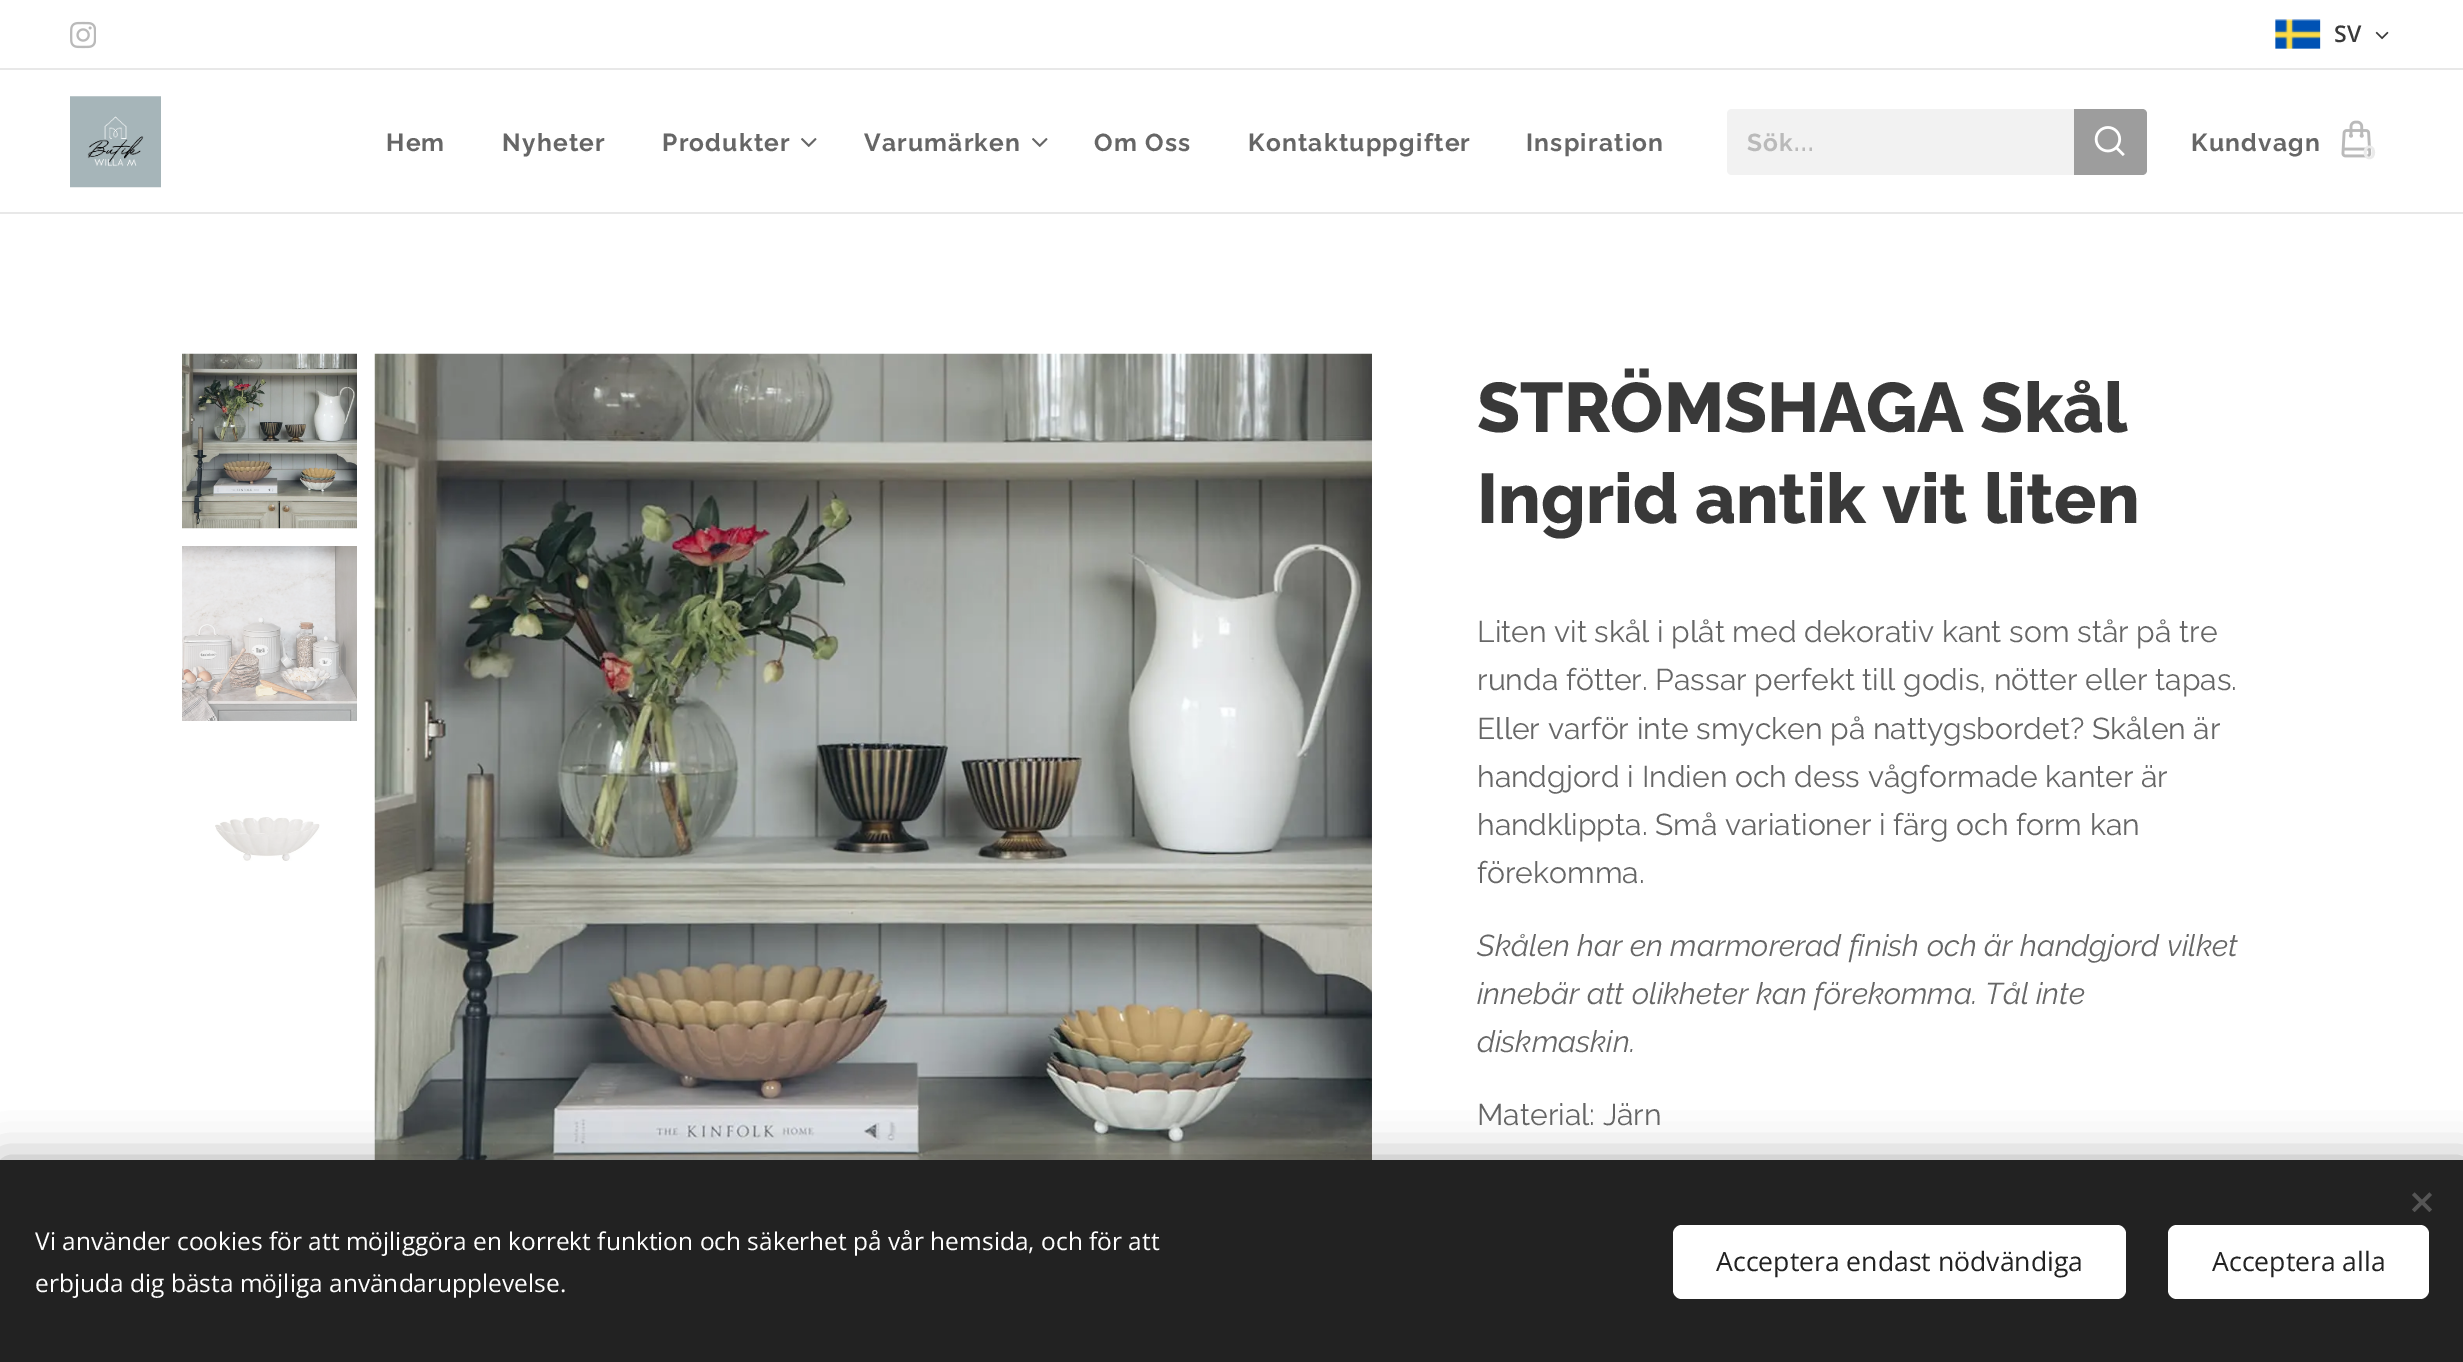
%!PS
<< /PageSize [2463 1362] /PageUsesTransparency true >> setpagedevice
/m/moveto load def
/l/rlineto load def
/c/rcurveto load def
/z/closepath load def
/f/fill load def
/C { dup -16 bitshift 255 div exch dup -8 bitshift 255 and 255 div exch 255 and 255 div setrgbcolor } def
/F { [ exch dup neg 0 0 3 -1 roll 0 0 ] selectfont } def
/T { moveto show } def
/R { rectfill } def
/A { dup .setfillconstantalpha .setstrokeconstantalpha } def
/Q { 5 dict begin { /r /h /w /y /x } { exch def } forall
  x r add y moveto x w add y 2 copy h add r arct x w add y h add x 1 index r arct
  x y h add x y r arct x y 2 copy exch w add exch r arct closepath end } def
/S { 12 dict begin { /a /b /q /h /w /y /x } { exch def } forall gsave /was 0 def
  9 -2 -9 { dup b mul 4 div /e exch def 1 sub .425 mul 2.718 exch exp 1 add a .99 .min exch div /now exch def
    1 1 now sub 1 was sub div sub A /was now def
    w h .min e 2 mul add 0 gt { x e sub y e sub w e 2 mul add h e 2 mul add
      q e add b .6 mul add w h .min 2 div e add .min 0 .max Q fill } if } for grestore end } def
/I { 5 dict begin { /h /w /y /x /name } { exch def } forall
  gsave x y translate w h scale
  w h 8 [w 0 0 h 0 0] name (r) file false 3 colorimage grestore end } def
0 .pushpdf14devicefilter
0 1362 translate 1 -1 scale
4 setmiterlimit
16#FFFFFF C
0 0 2463 1362 R
(1.rgb) 70 21 26 28 I
(2.rgb) 2275 19 46 30 I
/OpenSans-SemiBold 23 F
16#393939 C
(SV) 2334 42 T
(3.rgb) 2375 31 14 9 I
16#E8E8E8 C
0 68 2463 2 R
(4.rgb) 70 96 91 92 I
/Raleway-Bold 24.5 F
16#666666 C
386 151 m 1.25 0 (Hem) ashow
502 151 m 1.25 0 (Nyheter) ashow
662 151 m 1.25 0 (Produkter) ashow
(5.rgb) 801 138 16 9 I
864 151 m 1.25 0 (Varumärken) ashow
(5.rgb) 1032 138 16 9 I
1094 151 m 1.25 0 (Om Oss) ashow
1248 151 m 1.25 0 (Kontaktuppgifter) ashow
1526 151 m 1.25 0 (Inspiration) ashow
16#F2F2F2 C
1732 109 m 342 0 l 0 66 l -342 0 l -3 0 -5 -2 -5 -5 c 0 -56 l 0 -3 2 -5 5 -5 c z f
16#BABABA C
1747 151 m 1.25 0 (Sök...) ashow
16#9D9D9D C
2074 109 m 68 0 l 3 0 5 2 5 5 c 0 56 l 0 3 -2 5 -5 5 c -68 0 l z f
(6.rgb) 2094 126 31 30 I
16#666666 C
2191 151 m 1.25 0 (Kundvagn) ashow
(7.rgb) 2341 120 31 38 I
/Montserrat-Bold 19 F
16#EBEBEB C
(0) 2363 159 T
16#E8E8E8 C
0 212 2463 2 R
(8.rgb) 182 353 175 176 I
(9.rgb) 182 546 175 175 I
(10.rgb) 215 817 105 44 I
(11.rgb) 374 353 998 807 I
/Raleway-ExtraBold 70 F
16#393939 C
(STRÖMSHAGA Skål) 1477 432 T
(Ingrid antik vit liten) 1477 523 T
/Raleway-Regular 30.1 F
16#666666 C
(Liten vit skål i plåt med dekorativ kant som står på tre) 1477 642 T
(runda fötter. Passar perfekt till godis, nötter eller tapas.) 1477 690 T
(Eller varför inte smycken på nattygsbordet? Skålen är) 1477 739 T
(handgjord i Indien och dess vågformade kanter är) 1477 787 T
(handklippta. Små variationer i färg och form kan) 1477 835 T
(förekomma.) 1477 883 T
/Raleway-Italic 30.1 F
(Skålen har en marmorerad finish och är handgjord vilket) 1477 956 T
(innebär att olikheter kan förekomma.) 1477 1004 T
(Tål inte) 1985 1004 T
(diskmaskin.) 1477 1052 T
/Raleway-Regular 30.1 F
(Material: Järn) 1477 1125 T
16#000000 C
0 1160 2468 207 0 22 .33 S
16#222222 C
0 1160 2463 202 R
16#555555 C
2412 1209.5 m 17.5 -17 l 2.5 2.5 l -17.5 17 l z f
2414.5 1192.5 m 17.5 17 l -2.5 2.5 l -17.5 -17 l z f
/OpenSans-Regular 24.5 F
16#FFFFFF C
(Vi använder cookies för att möjliggöra en korrekt funktion och säkerhet på vår hemsida, och för att) 35 1250 T
(erbjuda dig bästa möjliga användarupplevelse.) 35 1292 T
1673 1225 453 74 9 Q f
/OpenSans-Regular 26.6 F
16#222222 C
(Acceptera endast nödvändiga) 1716 1271 T
16#FFFFFF C
2168 1225 261 74 9 Q f
16#222222 C
(Acceptera alla) 2212 1271 T
.poppdf14devicefilter showpage
